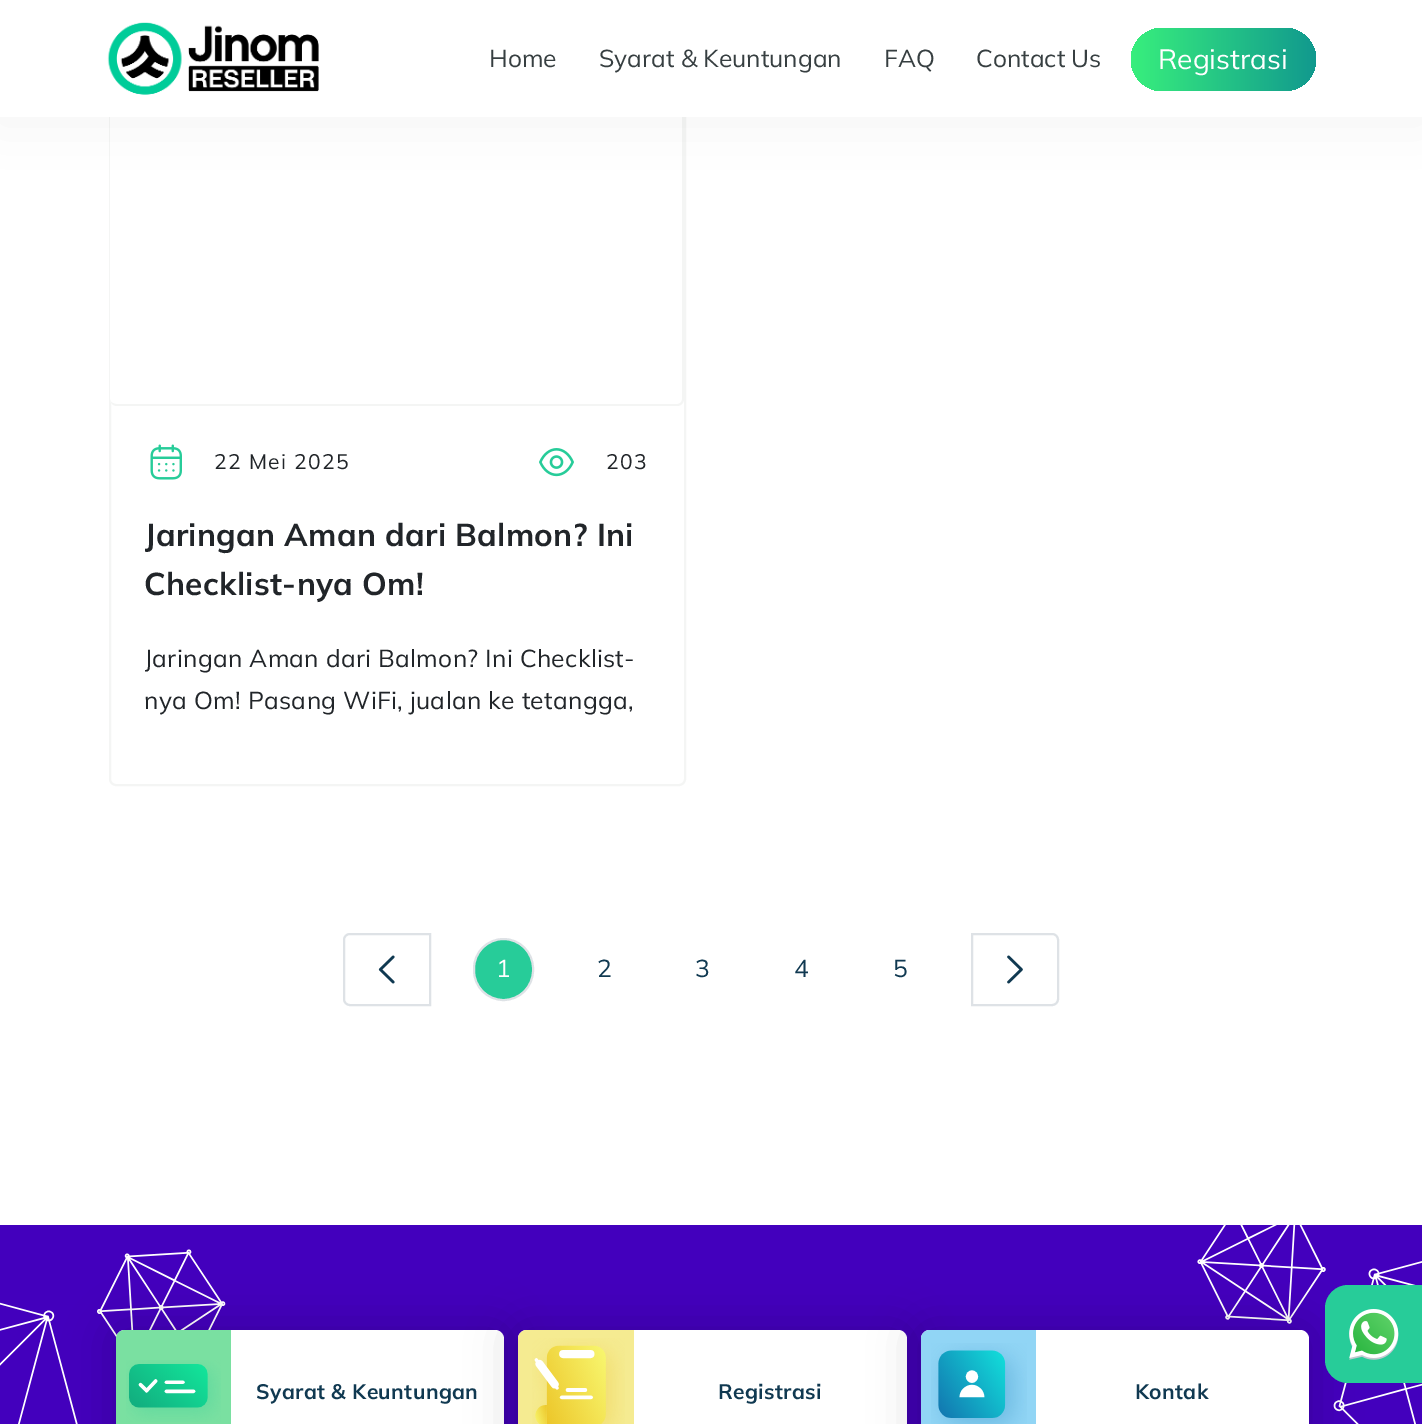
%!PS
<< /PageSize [1422 1424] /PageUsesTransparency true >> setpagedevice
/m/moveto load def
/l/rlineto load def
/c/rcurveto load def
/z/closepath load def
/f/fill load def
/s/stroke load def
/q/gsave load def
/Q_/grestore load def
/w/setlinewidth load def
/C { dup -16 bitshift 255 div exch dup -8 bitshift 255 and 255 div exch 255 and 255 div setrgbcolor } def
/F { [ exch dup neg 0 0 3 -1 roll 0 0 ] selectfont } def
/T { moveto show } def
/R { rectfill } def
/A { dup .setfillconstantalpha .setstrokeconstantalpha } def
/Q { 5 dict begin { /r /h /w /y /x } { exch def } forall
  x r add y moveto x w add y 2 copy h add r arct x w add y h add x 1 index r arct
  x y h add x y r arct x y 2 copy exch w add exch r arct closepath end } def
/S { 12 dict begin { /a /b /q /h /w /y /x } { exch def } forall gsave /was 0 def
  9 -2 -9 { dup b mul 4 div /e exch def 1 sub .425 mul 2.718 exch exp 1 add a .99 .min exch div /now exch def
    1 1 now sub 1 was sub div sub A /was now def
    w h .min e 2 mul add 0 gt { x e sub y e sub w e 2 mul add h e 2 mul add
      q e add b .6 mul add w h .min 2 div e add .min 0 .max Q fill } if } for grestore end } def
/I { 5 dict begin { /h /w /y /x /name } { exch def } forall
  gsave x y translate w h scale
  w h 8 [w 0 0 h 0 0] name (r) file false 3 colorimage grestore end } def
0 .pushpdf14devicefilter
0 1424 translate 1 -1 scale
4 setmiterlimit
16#FFFFFF C
0 0 1422 1424 R
16#F4F5F4 C
2 w
110 90 575 695 6 Q s
16#FFFFFF C
110 91 574 315 7 Q f
16#F4F5F4 C
117 91 m 560 0 l 4 0 7 3 7 7 c 0 301 l 0 4 -3 7 -7 7 c -560 0 l -4 0 -7 -3 -7 -7 c 0 -301 l 0 -4 3 -7 7 -7 c z 117 91 m 560 0 l 3 0 5 3 5 7 c 0 301 l 0 3 -2 5 -5 5 c -560 0 l -4 0 -7 -2 -7 -5 c 0 -301 l 0 -4 3 -7 7 -7 c z eofill
16#313030 C
-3 -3 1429 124 0 28 .06 S
16#FFFFFF C
0 0 1422 117 R
(1.rgb) 107 22 212 73 I
/Mulish-Regular 24.5 F
16#373F41 C
(Home) 489 67 T
(Syarat & Keuntungan) 599 67 T
(FAQ) 884 67 T
(Contact Us) 976 67 T
q 1131 28 185 63 31.5 Q clip newpath
<< /ShadingType 2 /ColorSpace /DeviceRGB /Coords [1131 60 1316 60] /Extend [true true] /Function << /FunctionType 2 /Domain [0 1] /C0 [.22 .937 .49] /C1 [.067 .6 .557] /N 1 >> >> shfill Q_
/Mulish-Regular 28 F
16#FFFFFF C
(Registrasi) 1158 69 T
(2.rgb) 150 444 32 36 I
/Mulish-Regular 21 F
16#212529 C
214 469 m 1.4 0 (22 Mei 2025) ashow
(3.rgb) 539 448 35 29 I
606 469 m 1.4 0 (203) ashow
q
145 511 504 98 rectclip
/Mulish-Bold 31.5 F
144 546 m .35 0 (Jaringan Aman dari Balmon? Ini) ashow
Q_
/Mulish-Bold 31.5 F
144 595 m .35 0 (Checklist-nya Om!) ashow
q
145 637 504 84 rectclip
/Mulish-Regular 24.5 F
144 667 m .35 0 (Jaringan Aman dari Balmon? Ini Checklist-) ashow
Q_
/Mulish-Regular 24.5 F
144 709 m .35 0 (nya Om! Pasang WiFi, jualan ke tetangga,) ashow
16#DEE2E6 C
350 934 m 80 0 l 0 71 l -80 0 l -3.5 0 -6 -2.5 -6 -6 c 0 -59 l 0 -3.5 2.5 -6 6 -6 c z s
(4.rgb) 378 955 17 29 I
16#27CC99 C
474 939 59 61 29.5 Q q f Q_
16#DEE2E6 C
s
16#FFFFFF C
(1) 496 977 T
16#103951 C
(2) 597 977 T
(3) 695 977 T
(4) 794 977 T
(5) 893 977 T
16#DEE2E6 C
972 934 m 80 0 l 3.5 0 6 2.5 6 6 c 0 59 l 0 3.5 -2.5 6 -6 6 c -80 0 l z s
(5.rgb) 1007 955 16 29 I
16#4300BD C
0 1225 1422 199 R
(6.rgb) 0 1249 226 175 I
16#000000 C
107 1321 406 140 18 21 .14 S
16#FFFFFF C
116 1330 388 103 9 Q f
16#7AE0A1 C
125 1330 m 106 0 l 0 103 l -106 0 l -5 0 -9 -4 -9 -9 c 0 -85 l 0 -5 4 -9 9 -9 c z f
(7.rgb) 126 1360 95 62 I
/Mulish-Bold 21 F
16#103951 C
256 1399 m .35 0 (Syarat & Keuntungan) ashow
16#000000 C
509 1321 406 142 18 21 .14 S
16#FFFFFF C
518 1330 389 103 9 Q f
16#F5EB91 C
527 1330 m 107 0 l 0 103 l -107 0 l -5 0 -9 -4 -9 -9 c 0 -85 l 0 -5 4 -9 9 -9 c z f
(8.rgb) 532 1338 93 86 I
16#103951 C
718 1399 m .35 0 (Registrasi) ashow
(10.rgb) 1197 1225 225 199 I
16#000000 C
912 1321 406 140 18 21 .14 S
16#FFFFFF C
921 1330 388 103 9 Q f
16#91D5F5 C
930 1330 m 106 0 l 0 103 l -106 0 l -5 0 -9 -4 -9 -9 c 0 -85 l 0 -5 4 -9 9 -9 c z f
(9.rgb) 931 1343 96 81 I
16#103951 C
1135 1399 m .35 0 (Kontak) ashow
16#27CC99 C
1348 1285 m 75 0 l 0 98 l -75 0 l -12.5 0 -23 -10.5 -23 -23 c 0 -52 l 0 -12.5 10.5 -23 23 -23 c z f
(11.rgb) 1349 1309 50 51 I
.poppdf14devicefilter showpage
